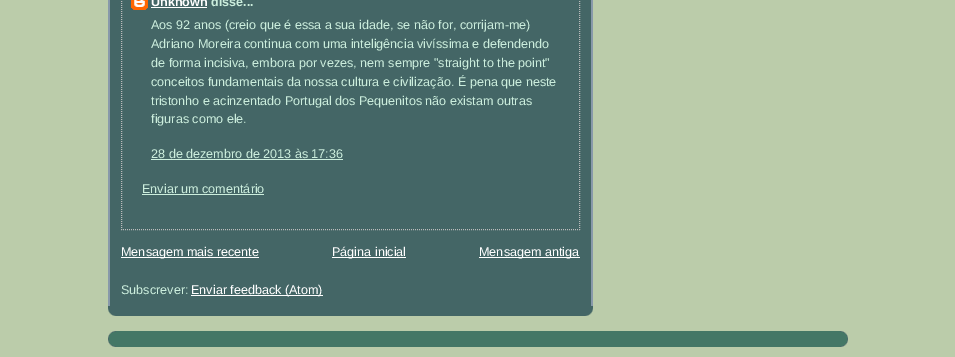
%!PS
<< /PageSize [955 357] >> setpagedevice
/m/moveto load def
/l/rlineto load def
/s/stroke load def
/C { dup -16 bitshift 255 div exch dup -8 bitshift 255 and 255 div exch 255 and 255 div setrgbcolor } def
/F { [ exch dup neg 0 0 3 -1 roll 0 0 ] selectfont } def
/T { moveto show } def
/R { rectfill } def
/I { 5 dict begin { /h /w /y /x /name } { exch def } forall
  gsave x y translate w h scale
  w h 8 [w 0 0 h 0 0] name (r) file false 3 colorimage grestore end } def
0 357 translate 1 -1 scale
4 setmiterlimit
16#BBCCAA C
0 0 955 357 R
16#446666 C
108 0 485 316 R
(1.rgb) 108 308 485 8 I
(2.rgb) 108 0 485 306 I
16#BBBBBB C
[1 1] 0 setdash
579.5 -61 m 0 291 l s
121 229.5 m 459 0 l s
121.5 -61 m 0 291 l s
(3.rgb) 131 0 17 10 I
/LiberationSans-Bold 12.6 F
16#FFFFFF C
(Unknown) 151 6 T
151 7 56 1 R
16#CCEEDD C
(disse...) 211 6 T
/LiberationSans-Regular 12.6 F
(Aos 92 anos \(creio que é essa a sua idade, se não for, corrijam-me\)) 151 29 T
(Adriano Moreira continua com uma inteligência vivíssima e defendendo) 151 48 T
(de forma incisiva, embora por vezes, nem sempre "straight to the point") 151 67 T
(conceitos fundamentais da nossa cultura e civilização. É pena que neste) 151 86 T
(tristonho e acinzentado Portugal dos Pequenitos não existam outras) 151 105 T
(figuras como ele.) 151 123 T
(28 de dezembro de 2013 às 17:36) 151 158 T
151 159 192 1 R
(Enviar um comentário) 142 193 T
142 194 122 1 R
16#FFFFFF C
121 257 138 1 R
(Mensagem mais recente) 121 256 T
332 257 74 1 R
(Página inicial) 332 256 T
479 257 101 1 R
(Mensagem antiga) 479 256 T
16#CCEEDD C
(Subscrever:) 121 294 T
16#FFFFFF C
191 295 132 1 R
(Enviar feedback \(Atom\)) 191 294 T
16#447766 C
109 331 738 16 R
(4.rgb) 108 331 740 8 I
(5.rgb) 108 339 740 8 I
showpage
